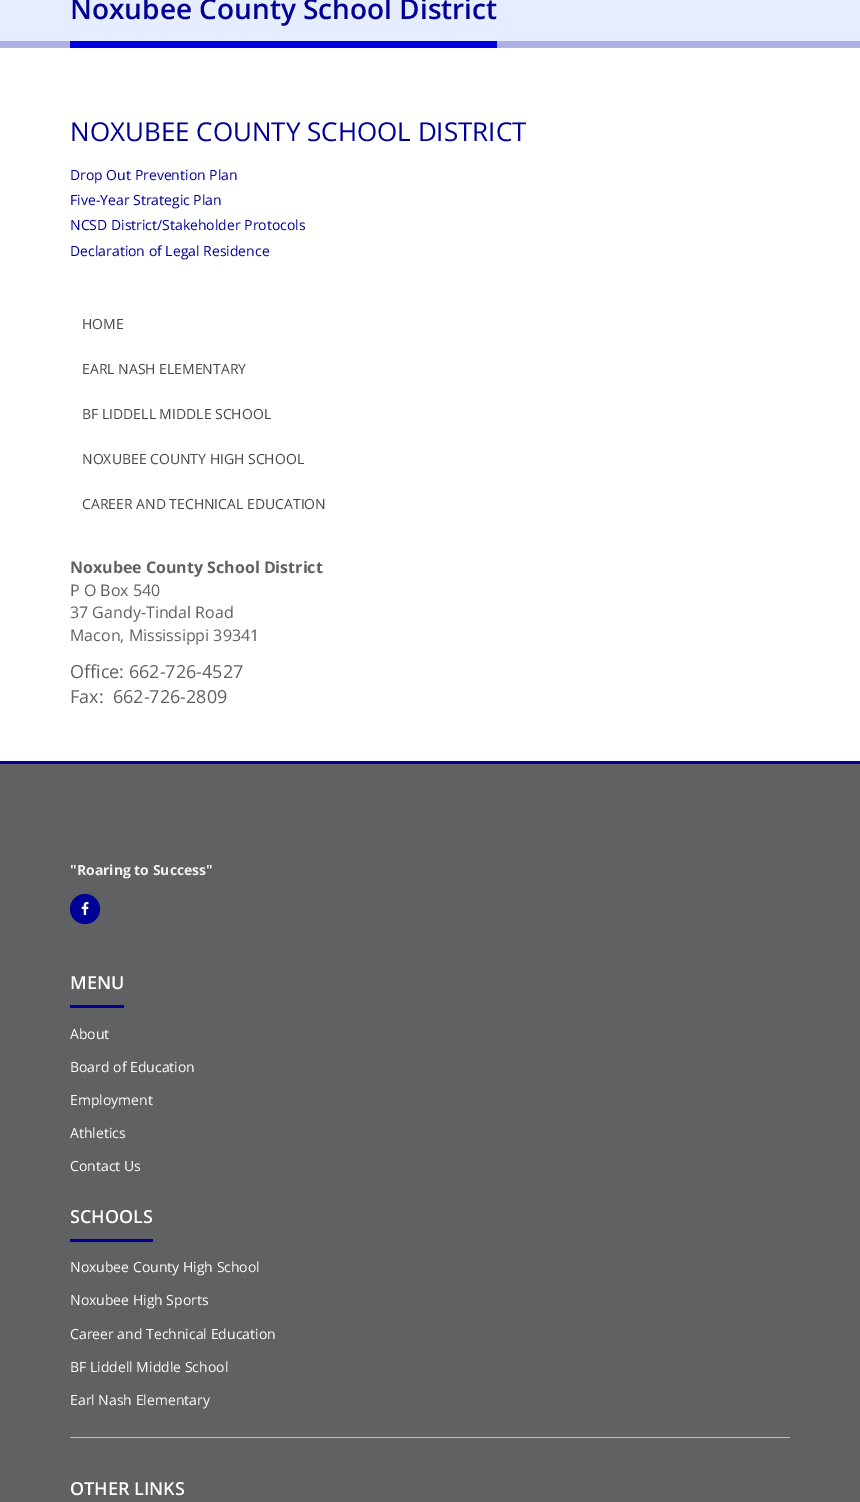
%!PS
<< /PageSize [860 1502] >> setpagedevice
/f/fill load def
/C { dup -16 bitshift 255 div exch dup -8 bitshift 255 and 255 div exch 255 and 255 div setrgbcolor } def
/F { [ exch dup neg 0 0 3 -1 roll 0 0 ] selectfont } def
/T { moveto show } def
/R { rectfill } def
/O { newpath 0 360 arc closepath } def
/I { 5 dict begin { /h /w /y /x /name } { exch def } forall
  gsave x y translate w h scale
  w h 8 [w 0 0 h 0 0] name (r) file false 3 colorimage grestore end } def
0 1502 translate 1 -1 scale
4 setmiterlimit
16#FFFFFF C
0 0 860 1502 R
16#E6EDFE C
0 0 860 41 R
16#ADB2E4 C
0 41 860 7 R
/OpenSans-SemiBold 28 F
16#000096 C
(Noxubee County School District) 70 19 T
16#0000E3 C
70 41 427 7 R
/OpenSans-Regular 26 F
16#000096 C
(NOXUBEE COUNTY SCHOOL DISTRICT) 70 141 T
/OpenSans-Regular 14 F
(Drop Out Prevention Plan) 70 180 T
(Five-Year Strategic Plan) 70 205 T
(NCSD District/Stakeholder Protocols) 70 230 T
(Declaration of Legal Residence) 70 256 T
16#47484A C
(HOME) 82 329 T
(EARL NASH ELEMENTARY) 82 374 T
(BF LIDDELL MIDDLE SCHOOL) 82 419 T
(NOXUBEE COUNTY HIGH SCHOOL) 82 464 T
(CAREER AND TECHNICAL EDUCATION) 82 509 T
/OpenSans-Bold 16 F
16#606163 C
(Noxubee County School District) 70 573 T
/OpenSans-Regular 16 F
(P O Box 540) 70 596 T
(37 Gandy-Tindal Road) 70 618 T
(Macon, Mississippi 39341) 70 641 T
/OpenSans-Regular 18 F
(Office: 662-726-4527) 70 678 T
(Fax:  662-726-2809) 70 703 T
0 764 860 738 R
16#000096 C
0 761 860 3 R
/OpenSans-Bold 14 F
16#F0EFF4 C
("Roaring to Success") 70 875 T
16#000096 C
85 909 15 O f
(1.rgb) 81 902 8 13 I
70 1005 54 3 R
/OpenSans-SemiBold 18 F
16#FFFFFF C
(MENU) 70 989 T
/OpenSans-Regular 14 F
(About) 70 1039 T
(Board of Education) 70 1072 T
(Employment) 70 1105 T
(Athletics) 70 1138 T
(Contact Us) 70 1171 T
16#000096 C
70 1239 83 3 R
/OpenSans-SemiBold 18 F
16#FFFFFF C
(SCHOOLS) 70 1223 T
/OpenSans-Regular 14 F
(Noxubee County High School) 70 1272 T
(Noxubee High Sports) 70 1305 T
(Career and Technical Education) 70 1339 T
(BF Liddell Middle School) 70 1372 T
(Earl Nash Elementary) 70 1405 T
16#BFC1C4 C
70 1437 720 1 R
/OpenSans-SemiBold 18 F
16#FFFFFF C
(OTHER LINKS) 70 1495 T
showpage
